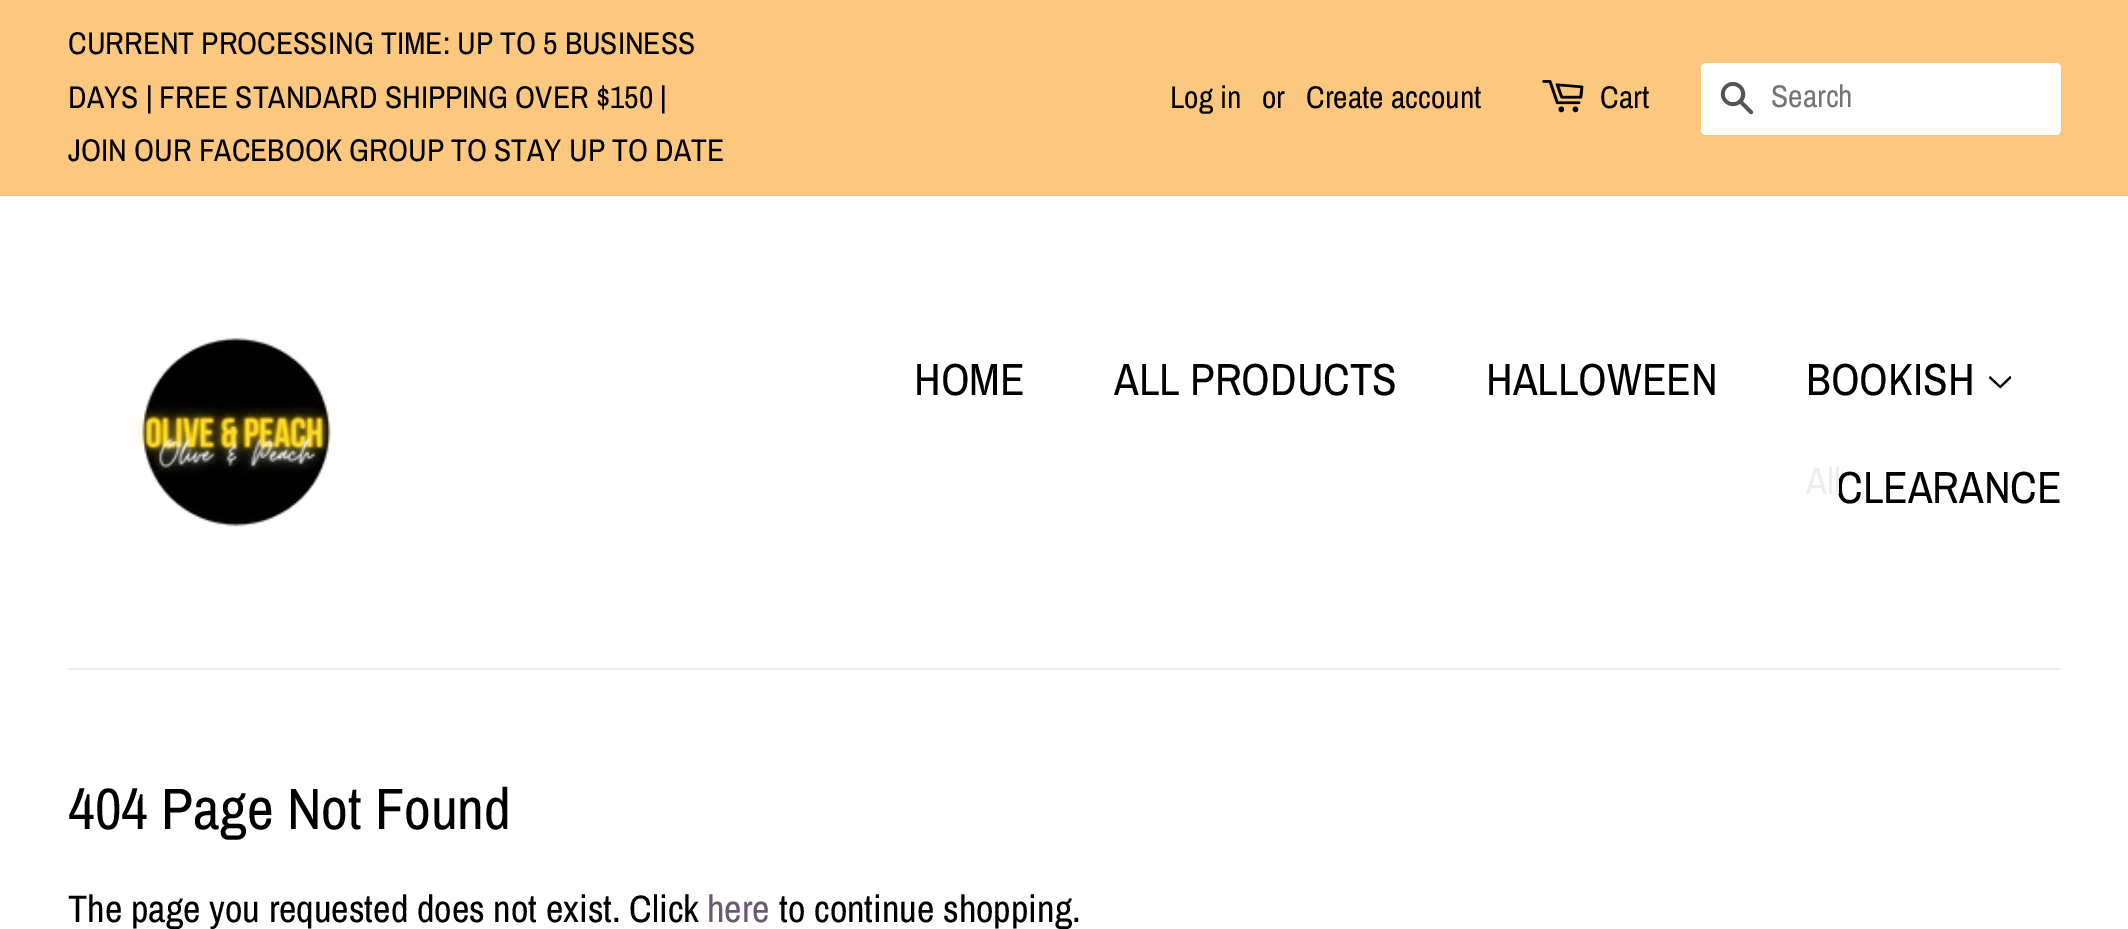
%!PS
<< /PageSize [2128 929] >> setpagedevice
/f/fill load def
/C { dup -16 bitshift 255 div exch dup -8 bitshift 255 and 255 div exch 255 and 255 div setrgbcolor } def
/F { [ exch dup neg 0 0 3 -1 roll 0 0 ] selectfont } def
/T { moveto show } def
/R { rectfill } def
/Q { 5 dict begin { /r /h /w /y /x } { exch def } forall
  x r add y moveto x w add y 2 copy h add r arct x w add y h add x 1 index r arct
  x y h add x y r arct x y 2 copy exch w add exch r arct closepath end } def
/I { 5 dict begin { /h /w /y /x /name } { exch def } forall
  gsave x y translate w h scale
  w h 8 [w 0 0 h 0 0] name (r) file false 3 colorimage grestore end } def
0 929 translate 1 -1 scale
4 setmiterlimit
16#FFFFFF C
0 0 2128 929 R
16#FCC77E C
0 0 2128 196 R
/ArchivoNarrow-Regular 31.5 F
16#000000 C
(CURRENT PROCESSING TIME: UP TO 5 BUSINESS) 68 54 T
(DAYS | FREE STANDARD SHIPPING OVER $150 |) 68 108 T
(JOIN OUR FACEBOOK GROUP TO STAY UP TO DATE) 68 161 T
(Log in) 1170 108 T
(or) 1262 108 T
(Create account) 1306 108 T
(1.rgb) 1542 80 42 33 I
(Cart) 1600 108 T
16#FFFFFF C
1701 63 360 72 5 Q f
(2.rgb) 1720 81 34 34 I
16#757575 C
(Search) 1771 107 T
16#EBEBEB C
68 668 1993 2 R
(3.rgb) 134 337 201 190 I
/ArchivoNarrow-Regular 45 F
16#000000 C
(HOME) 914 395 T
(ALL PRODUCTS) 1114 395 T
(HALLOWEEN) 1486 395 T
(BOOKISH) 1806 395 T
(4.rgb) 1989 376 23 13 I
(CLEARANCE) 1836 503 T
/ArchivoNarrow-Regular 38.25 F
16#EDEDED C
(All) 1806 494 T
/ArchivoNarrow-Regular 58.5 F
16#000000 C
(404 Page Not Found) 68 829 T
/ArchivoNarrow-Regular 38.25 F
(The page you requested does not exist. Click) 68 922 T
16#6A5975 C
(here) 707 922 T
16#000000 C
(to continue shopping.) 779 922 T
showpage
